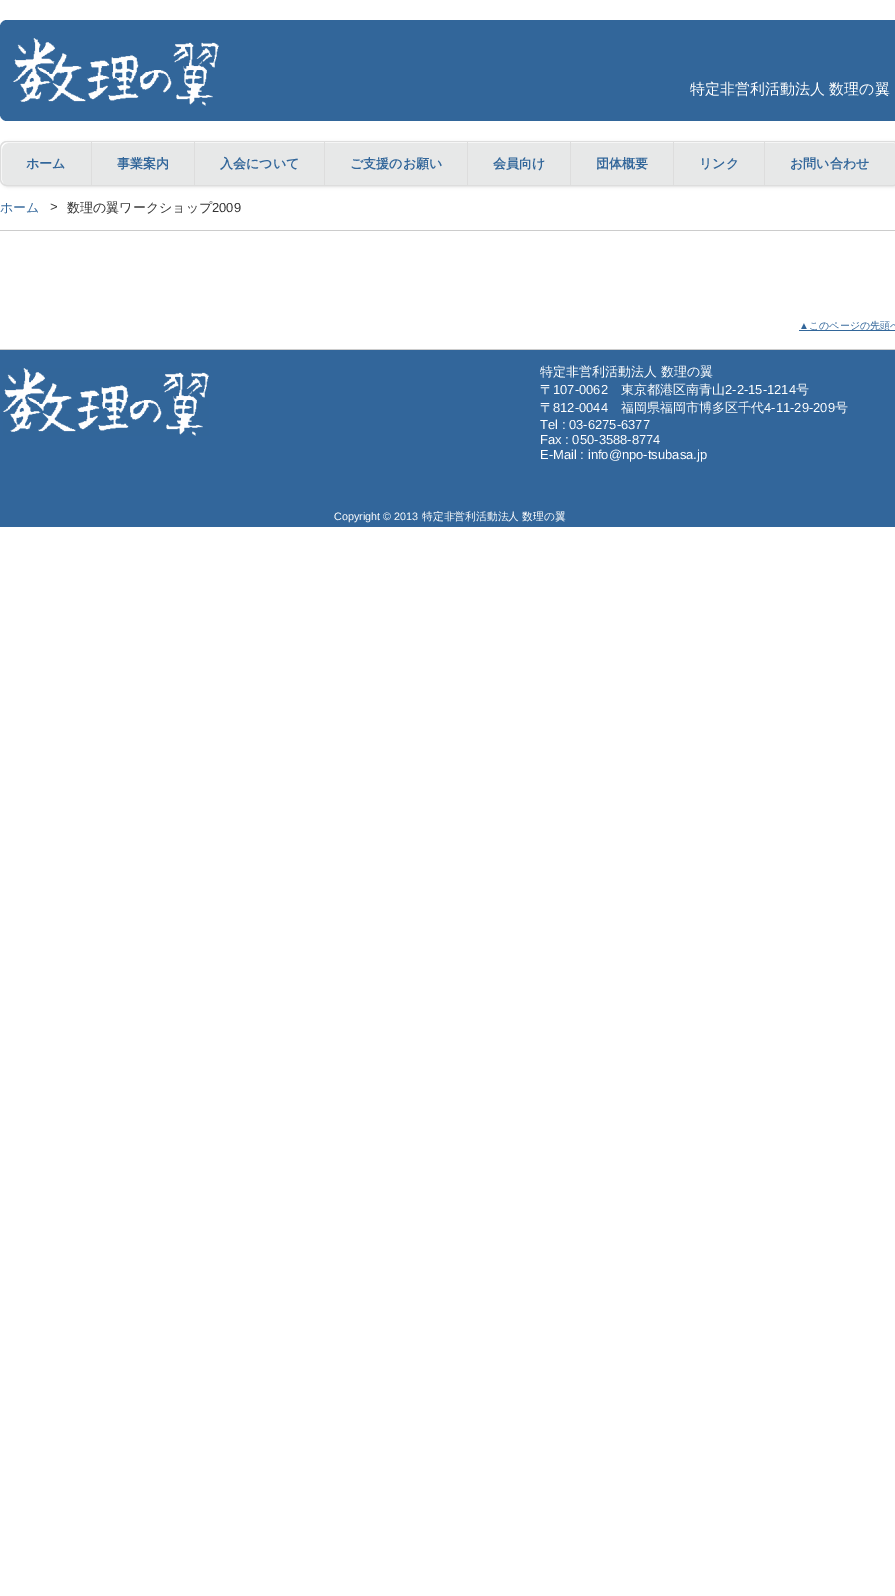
%!PS
<< /PageSize [895 1596] /PageUsesTransparency true >> setpagedevice
/m/moveto load def
/l/rlineto load def
/c/rcurveto load def
/z/closepath load def
/f/fill load def
/s/stroke load def
/C { dup -16 bitshift 255 div exch dup -8 bitshift 255 and 255 div exch 255 and 255 div setrgbcolor } def
/F { [ exch dup neg 0 0 3 -1 roll 0 0 ] selectfont } def
/T { moveto show } def
/R { rectfill } def
/A { dup .setfillconstantalpha .setstrokeconstantalpha } def
/Q { 5 dict begin { /r /h /w /y /x } { exch def } forall
  x r add y moveto x w add y 2 copy h add r arct x w add y h add x 1 index r arct
  x y h add x y r arct x y 2 copy exch w add exch r arct closepath end } def
/S { 12 dict begin { /a /b /q /h /w /y /x } { exch def } forall gsave /was 0 def
  9 -2 -9 { dup b mul 4 div /e exch def 1 sub .425 mul 2.718 exch exp 1 add a .99 .min exch div /now exch def
    1 1 now sub 1 was sub div sub A /was now def
    w h .min e 2 mul add 0 gt { x e sub y e sub w e 2 mul add h e 2 mul add
      q e add b .6 mul add w h .min 2 div e add .min 0 .max Q fill } if } for grestore end } def
/I { 5 dict begin { /h /w /y /x /name } { exch def } forall
  gsave x y translate w h scale
  w h 8 [w 0 0 h 0 0] name (r) file false 3 colorimage grestore end } def
0 .pushpdf14devicefilter
0 1596 translate 1 -1 scale
4 setmiterlimit
16#FFFFFF C
0 0 895 1596 R
16#32669A C
0 20 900 101 7 Q f
(1.rgb) 13 38 206 68 I
/WenQuanYiZenHei-Medium 15 F
16#FFFFFF C
(特定非営利活動法人 数理の翼) 690 94 T
16#000000 C
1 142 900 45 7 1.5 .1 S
16#E7E8E8 C
0 141 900 45 7 Q f
16#FFFFFF C
8 143 m 886 0 l 1 0 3 1 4 2 c -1 -2 -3 -3 -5 -3 c -886 0 l -3 0 -6 3 -6 6 c 0 31 l 0 2 1 4 3 5 c -1 -1 -2 -3 -2 -4 c 0 -31 l 0 -3 3 -6 6 -6 c z f
16#DDDDDD C
.5 141.5 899 44 6.5 Q s
91 142 1 43 R
/WenQuanYiZenHei-Bold 13 F
16#32669A C
(ホーム) 26 168 T
16#DDDDDD C
194 142 1 43 R
16#32669A C
(事業案内) 117 168 T
16#DDDDDD C
324 142 1 43 R
16#32669A C
(入会について) 220 168 T
16#DDDDDD C
467 142 1 43 R
16#32669A C
(ご支援のお願い) 350 168 T
16#DDDDDD C
570 142 1 43 R
16#32669A C
(会員向け) 493 168 T
16#DDDDDD C
673 142 1 43 R
16#32669A C
(団体概要) 596 168 T
16#DDDDDD C
764 142 1 43 R
16#32669A C
(リンク) 699 168 T
(お問い合わせ) 790 168 T
16#CCCCCC C
0 230 895 1 R
/WenQuanYiZenHei-Medium 13 F
16#32669A C
(ホーム) 0 212 T
/LiberationSans-Regular 13 F
16#333333 C
(>) 50 211 T
/WenQuanYiZenHei-Medium 13 F
(数理の翼ワークショップ) 67 212 T
/LiberationSans-Regular 13 F
(2009) 212 212 T
/LiberationSans-Regular 10 F
16#32669A C
(▲) 799 329 T
799 330 96 1 R
/WenQuanYiZenHei-Medium 10 F
(このページの先頭へ) 809 329 T
16#32669B C
0 350 895 177 R
16#CCCCCC C
0 349 895 1 R
(2.rgb) 3 368 206 68 I
/WenQuanYiZenHei-Medium 13 F
16#FFFFFF C
(特定非営利活動法人 数理の翼) 540 376 T
(〒) 540 394 T
/LiberationSans-Regular 13 F
(107-0062) 553 394 T
/WenQuanYiZenHei-Medium 13 F
(東京都港区南青山) 621 394 T
/LiberationSans-Regular 13 F
(2-2-15-1214) 725 394 T
/WenQuanYiZenHei-Medium 13 F
(号) 796 394 T
(〒) 540 412 T
/LiberationSans-Regular 13 F
(812-0044) 553 412 T
/WenQuanYiZenHei-Medium 13 F
(福岡県福岡市博多区千代) 621 412 T
/LiberationSans-Regular 13 F
(4-11-29-209) 764 412 T
/WenQuanYiZenHei-Medium 13 F
(号) 835 412 T
/LiberationSans-Regular 13 F
(Tel : 03-6275-6377) 540 429 T
(Fax : 050-3588-8774) 540 444 T
(E-Mail : info@npo-tsubasa.jp) 540 459 T
/LiberationSans-Regular 10.8 F
(Copyright © 2013) 334 520 T
/WenQuanYiZenHei-Medium 10.8 F
(特定非営利活動法人 数理の翼) 422 520 T
.poppdf14devicefilter showpage
